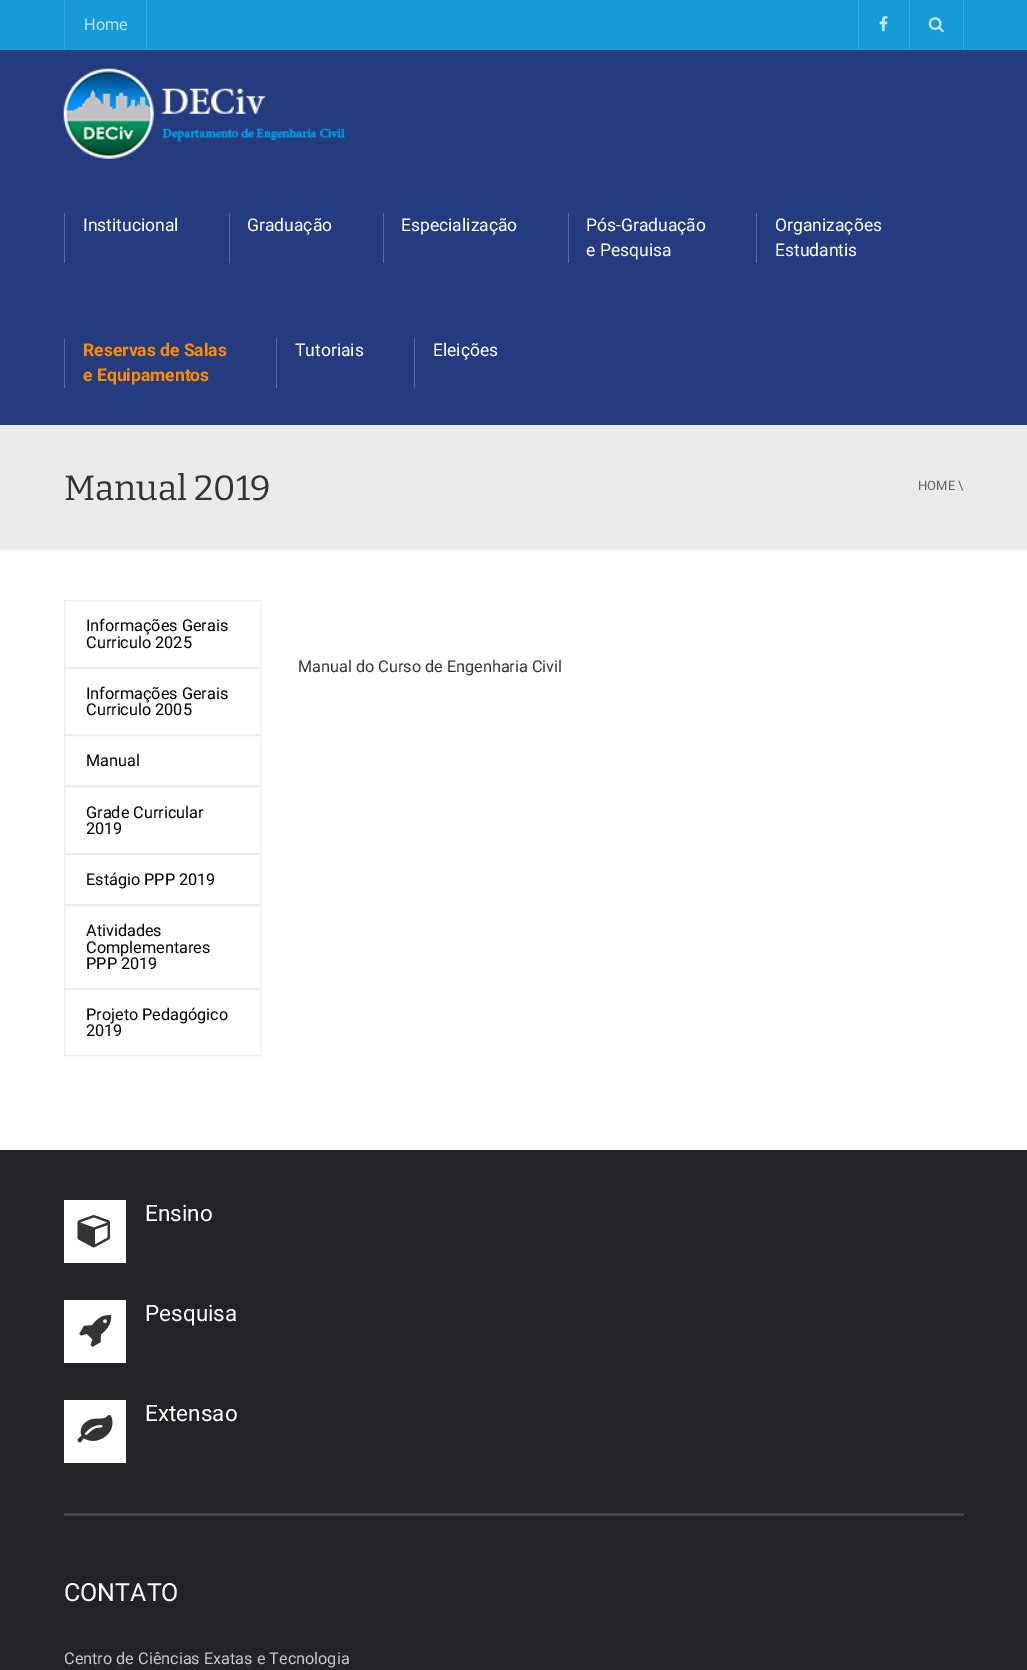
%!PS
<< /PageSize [1027 1670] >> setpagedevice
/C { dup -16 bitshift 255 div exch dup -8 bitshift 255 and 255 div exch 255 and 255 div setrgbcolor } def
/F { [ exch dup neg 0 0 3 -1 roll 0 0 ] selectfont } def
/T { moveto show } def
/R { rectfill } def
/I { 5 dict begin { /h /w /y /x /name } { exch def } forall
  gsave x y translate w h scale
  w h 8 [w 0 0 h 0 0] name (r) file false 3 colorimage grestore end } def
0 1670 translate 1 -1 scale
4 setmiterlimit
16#FFFFFF C
0 0 1027 1670 R
16#179BD7 C
0 0 1027 50 R
16#3AAADD C
146 0 1 50 R
64 0 1 50 R
/Roboto-Regular 16.25 F
16#C5E6F5 C
(Home) 84 30 T
16#3AAADD C
858 0 1 50 R
(1.rgb) 879 16 9 16 I
963 0 1 50 R
909 0 1 50 R
(2.rgb) 928 17 16 16 I
16#253B80 C
0 50 1027 375 R
(3.rgb) 63 68 282 91 I
16#5C6CA0 C
64 213 1 50 R
/Roboto-Regular 17.5 F
16#FFFFFF C
(Institucional) 83 231 T
16#5C6CA0 C
229 213 1 50 R
16#FFFFFF C
(Graduação) 247 231 T
16#5C6CA0 C
383 213 1 50 R
16#FFFFFF C
(Especialização) 401 231 T
16#5C6CA0 C
568 213 1 50 R
16#FFFFFF C
(Pós-Graduação) 586 231 T
(e Pesquisa) 586 256 T
16#5C6CA0 C
756 213 1 50 R
16#FFFFFF C
(Organizações) 775 231 T
(Estudantis) 775 256 T
16#5C6CA0 C
64 338 1 50 R
/Roboto-Bold 17.5 F
16#FF8C00 C
(Reservas de Salas) 83 356 T
(e Equipamentos) 83 381 T
16#5C6CA0 C
276 338 1 50 R
/Roboto-Regular 17.5 F
16#FFFFFF C
(Tutoriais) 295 356 T
16#5C6CA0 C
414 338 1 50 R
16#FFFFFF C
(Eleições) 433 356 T
16#EAEAEA C
0 425 1027 125 R
/Bitter-Thin 35 F
16#343434 C
(Manual 2019) 64 500 T
/Roboto-Regular 13 F
16#666666 C
(HOME \\) 918 490 T
16#EEEEEE C
64.5 600.5 196 67 rectstroke
/Roboto-Regular 16.25 F
16#000000 C
(Informações Gerais) 86 631 T
(Curriculo 2025) 86 648 T
16#EEEEEE C
64.5 668.5 196 66 rectstroke
16#000000 C
(Informações Gerais) 86 699 T
(Curriculo 2005) 86 715 T
16#EEEEEE C
64.5 735.5 196 50 rectstroke
16#000000 C
(Manual) 86 766 T
16#EEEEEE C
64.5 786.5 196 67 rectstroke
16#000000 C
(Grade Curricular) 86 818 T
(2019) 86 834 T
16#EEEEEE C
64.5 854.5 196 50 rectstroke
16#000000 C
(Estágio PPP 2019) 86 885 T
16#EEEEEE C
64.5 905.5 196 83 rectstroke
16#000000 C
(Atividades) 86 936 T
(Complementares) 86 953 T
(PPP 2019) 86 969 T
16#EEEEEE C
64.5 989.5 196 66 rectstroke
16#000000 C
(Projeto Pedagógico) 86 1020 T
(2019) 86 1036 T
16#343434 C
(Manual do Curso de Engenharia Civil) 298 672 T
16#212327 C
0 1150 1027 520 R
16#FFFFFF C
64 1200 62 63 R
(4.rgb) 77 1215 33 33 I
/Roboto-Regular 22.5 F
(Ensino) 145 1221 T
64 1300 62 63 R
(5.rgb) 79 1315 33 32 I
(Pesquisa) 145 1321 T
64 1400 62 63 R
(6.rgb) 77 1415 36 28 I
(Extensao) 145 1421 T
16#424447 C
64 1513 900 3 R
/Roboto-Regular 25 F
16#FFFFFF C
(CONTATO) 64 1601 T
/Roboto-Regular 16.25 F
16#C8C8C9 C
(Centro de Ciências Exatas e Tecnologia) 64 1664 T
showpage
